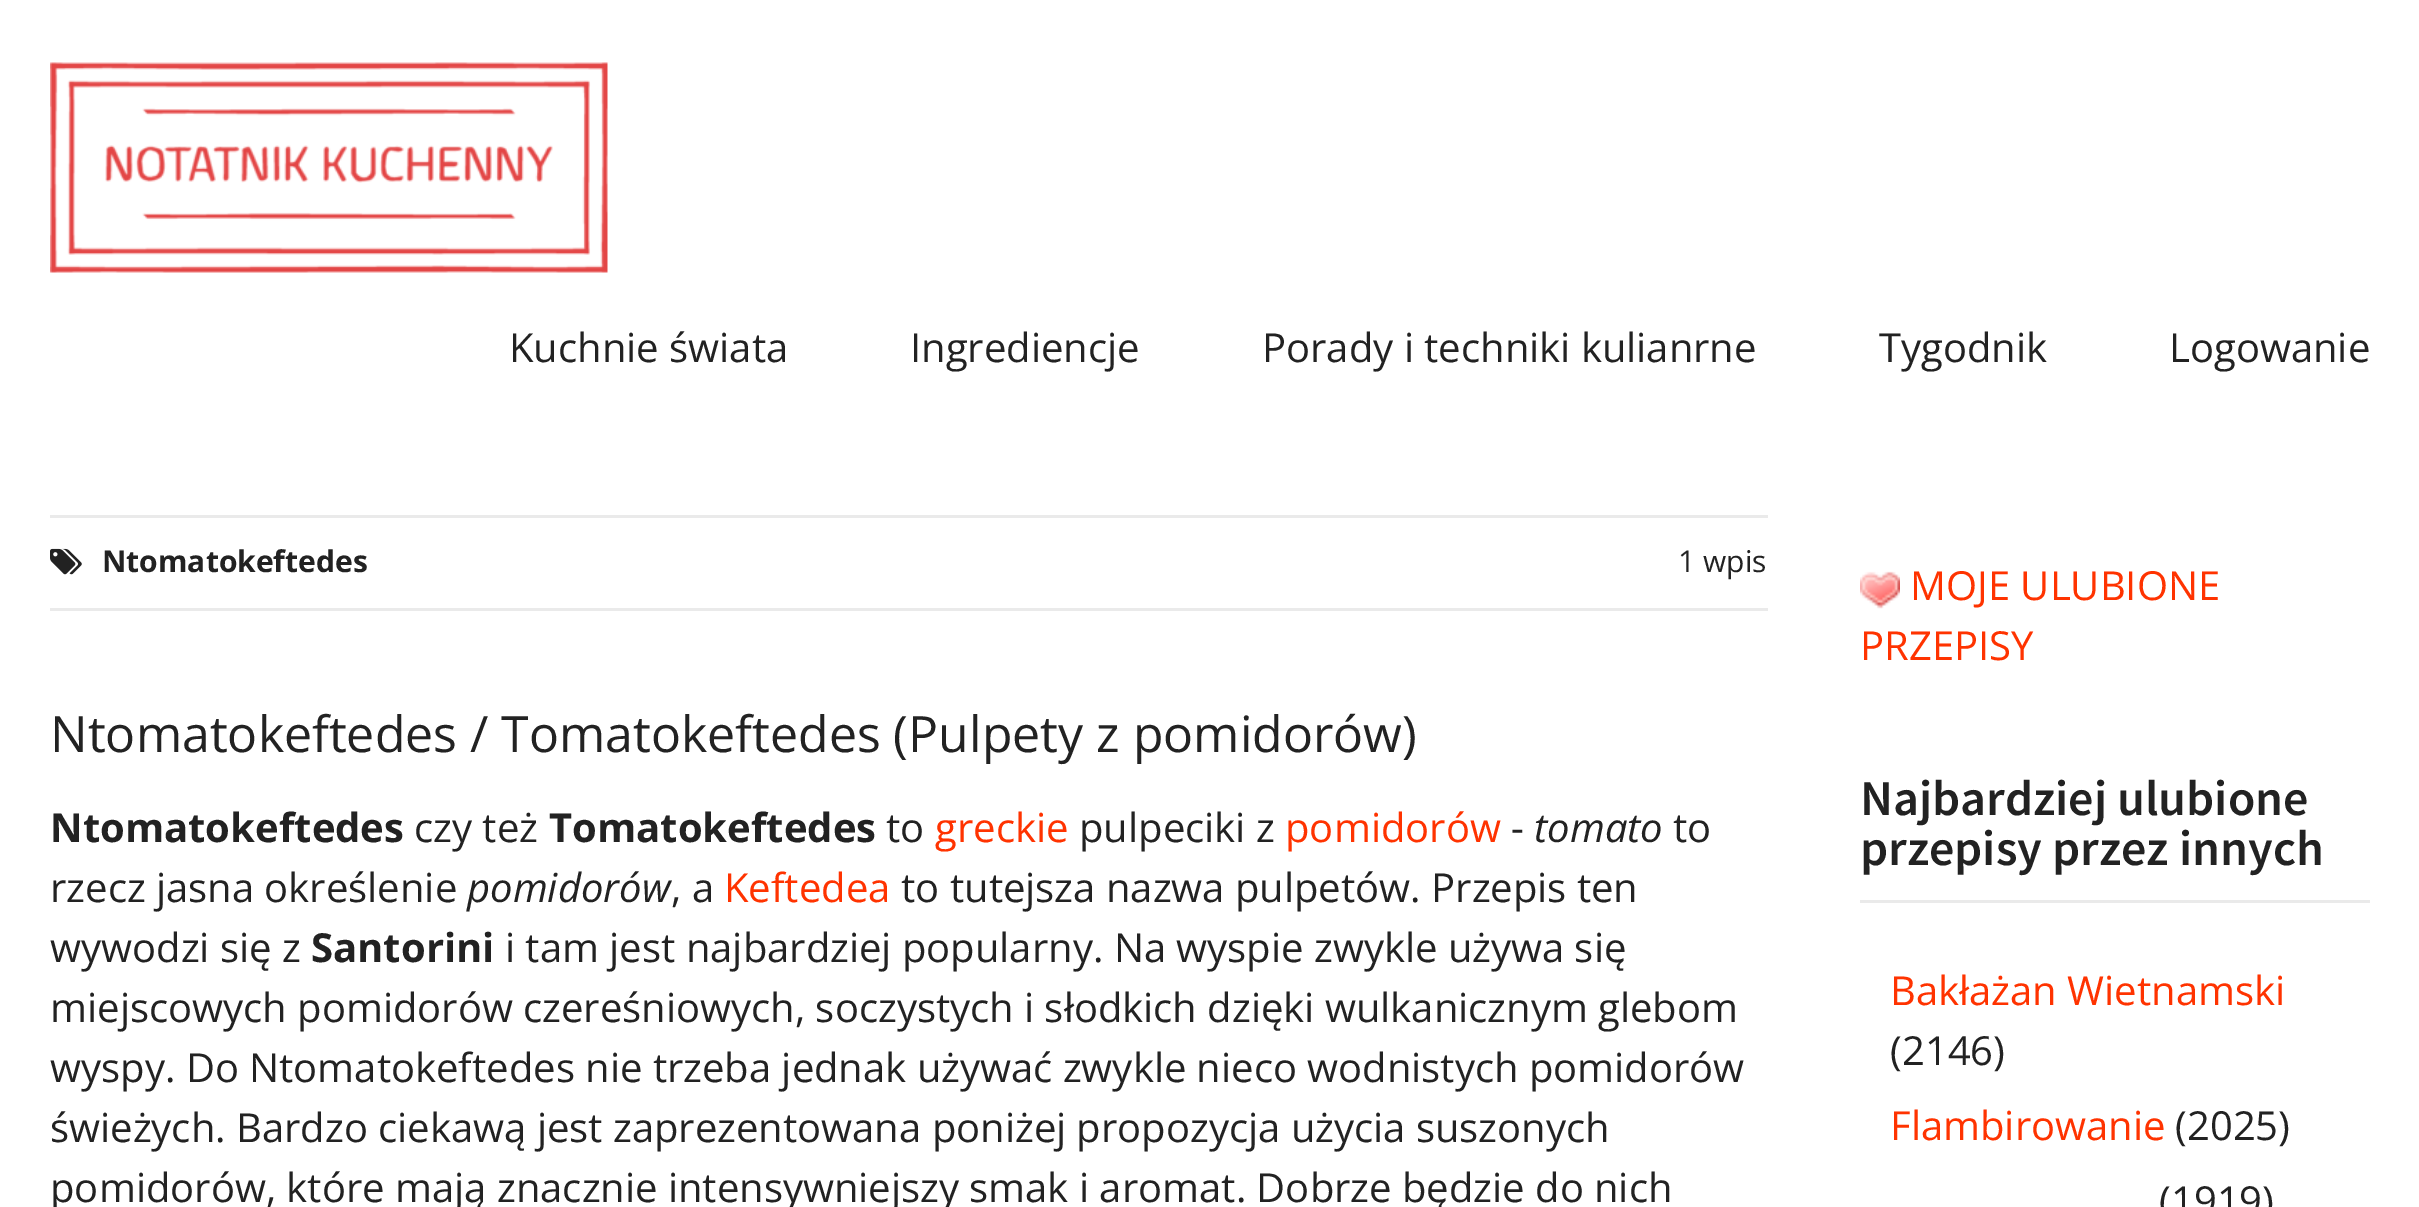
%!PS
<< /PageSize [2419 1207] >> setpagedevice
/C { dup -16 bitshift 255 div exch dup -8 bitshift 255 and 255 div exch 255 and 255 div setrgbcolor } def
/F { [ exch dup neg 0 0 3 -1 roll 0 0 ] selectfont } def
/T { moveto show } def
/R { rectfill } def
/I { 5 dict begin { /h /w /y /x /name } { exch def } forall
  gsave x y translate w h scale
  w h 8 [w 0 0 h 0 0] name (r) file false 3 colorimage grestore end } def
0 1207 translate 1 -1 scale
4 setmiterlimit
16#FFFFFF C
0 0 2419 1207 R
(1.rgb) 50 62 558 211 I
/OpenSans-Regular 40 F
16#222222 C
(Kuchnie świata) 509 362 T
(Ingrediencje) 910 362 T
(Porady i techniki kulianrne) 1262 362 T
(Tygodnik) 1879 362 T
(Logowanie) 2169 362 T
16#EAEAEA C
50 515 1718 3 R
50 608 1718 3 R
(2.rgb) 50 548 32 27 I
/OpenSans-Bold 30 F
16#222222 C
(Ntomatokeftedes) 102 572 T
/OpenSans-Regular 30 F
(1 wpis) 1678 572 T
/OpenSans-Regular 50 F
(Ntomatokeftedes / Tomatokeftedes \(Pulpety z pomidorów\)) 50 752 T
/OpenSans-Bold 40 F
(Ntomatokeftedes) 50 842 T
/OpenSans-Regular 40 F
(czy też) 414 842 T
/OpenSans-Bold 40 F
(Tomatokeftedes) 549 842 T
/OpenSans-Regular 40 F
(to) 886 842 T
16#FF3300 C
(greckie) 935 842 T
16#222222 C
(pulpeciki z) 1079 842 T
16#FF3300 C
(pomidorów) 1285 842 T
16#222222 C
(-) 1511 842 T
/OpenSans-Italic 40 F
(tomato) 1534 842 T
/OpenSans-Regular 40 F
(to) 1673 842 T
(rzecz jasna określenie) 50 902 T
/OpenSans-Italic 40 F
(pomidorów) 467 902 T
/OpenSans-Regular 40 F
(, a) 671 902 T
16#FF3300 C
(Keftedea) 724 902 T
16#222222 C
(to tutejsza nazwa pulpetów. Przepis ten) 901 902 T
(wywodzi się z) 50 962 T
/OpenSans-Bold 40 F
(Santorini) 311 962 T
/OpenSans-Regular 40 F
(i tam jest najbardziej popularny. Na wyspie zwykle używa się) 505 962 T
(miejscowych pomidorów czereśniowych, soczystych i słodkich dzięki wulkanicznym glebom) 50 1022 T
(wyspy. Do Ntomatokeftedes nie trzeba jednak używać zwykle nieco wodnistych pomidorów) 50 1082 T
(świeżych. Bardzo ciekawą jest zaprezentowana poniżej propozycja użycia suszonych) 50 1142 T
(pomidorów, które mają znacznie intensywniejszy smak i aromat. Dobrze będzie do nich) 50 1202 T
(3.rgb) 1860 571 40 38 I
16#FF3300 C
(MOJE ULUBIONE) 1910 600 T
(PRZEPISY) 1860 660 T
16#EAEAEA C
1860 900 510 3 R
/SourceSansPro-SemiBold 50 F
16#222222 C
(Najbardziej ulubione) 1860 815 T
(przepisy przez innych) 1860 865 T
/OpenSans-Regular 40 F
16#FF3300 C
(Bakłażan Wietnamski) 1890 1005 T
16#222222 C
(\(2146\)) 1890 1065 T
16#FF3300 C
(Flambirowanie) 1890 1140 T
16#222222 C
(\(2025\)) 2175 1140 T
(\(1919\)) 2159 1215 T
showpage
